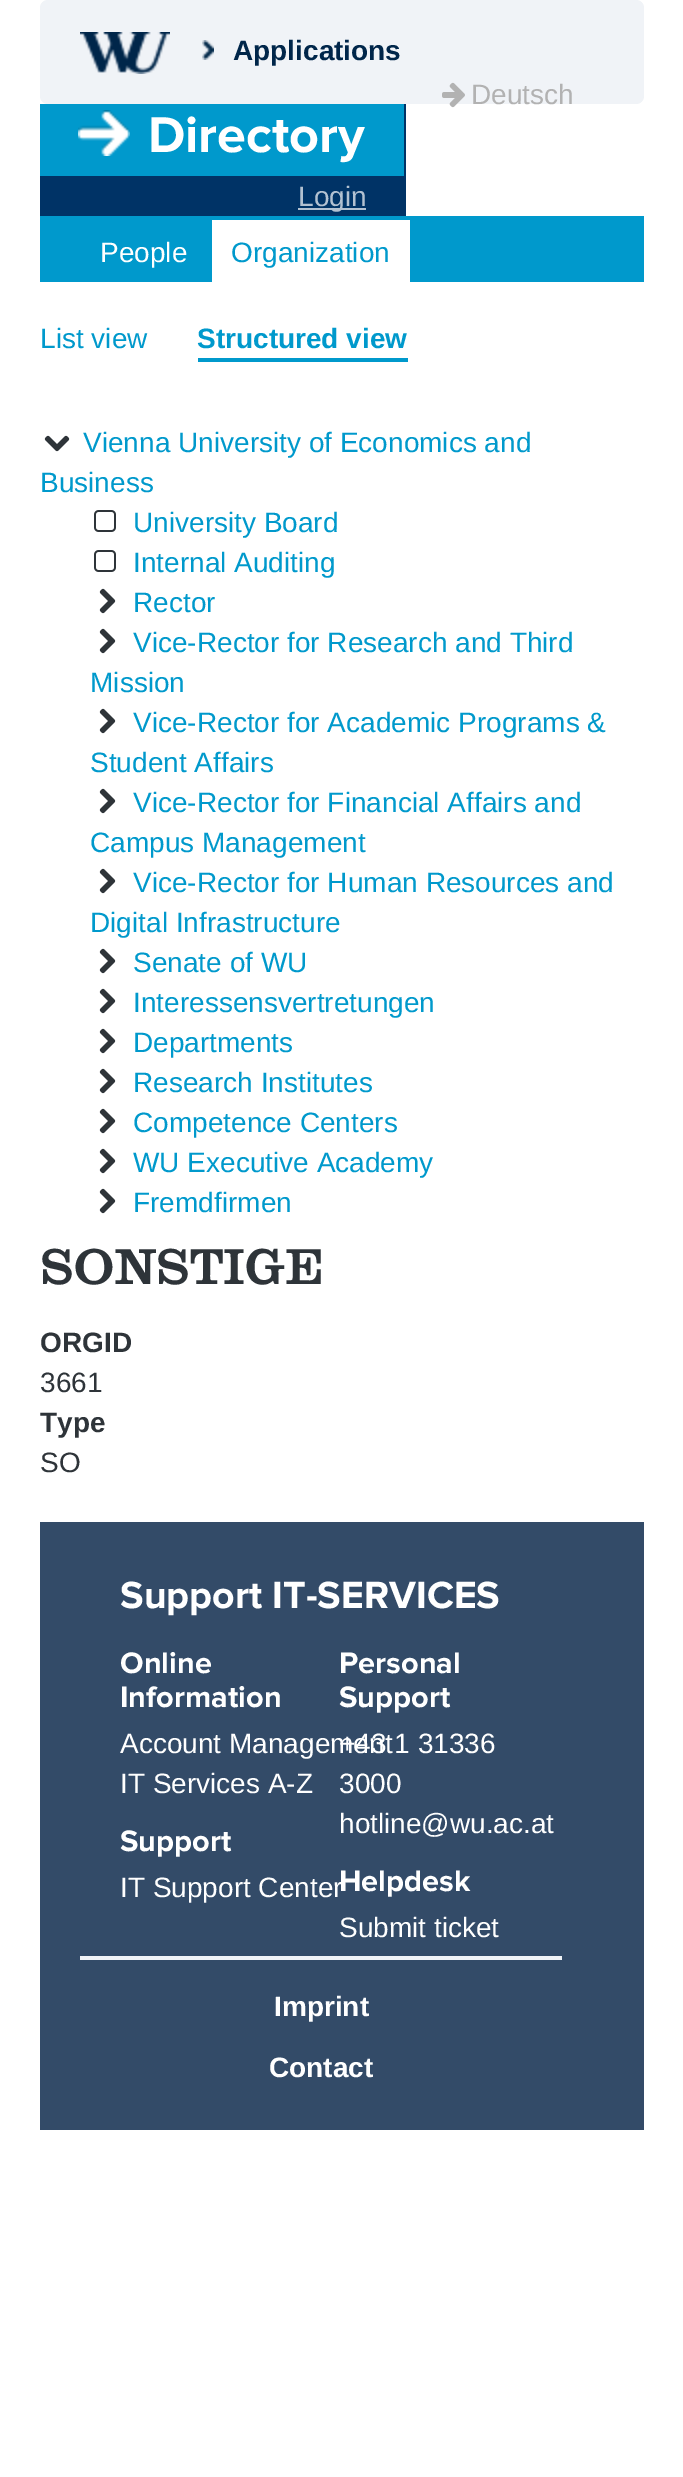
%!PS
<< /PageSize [683 2477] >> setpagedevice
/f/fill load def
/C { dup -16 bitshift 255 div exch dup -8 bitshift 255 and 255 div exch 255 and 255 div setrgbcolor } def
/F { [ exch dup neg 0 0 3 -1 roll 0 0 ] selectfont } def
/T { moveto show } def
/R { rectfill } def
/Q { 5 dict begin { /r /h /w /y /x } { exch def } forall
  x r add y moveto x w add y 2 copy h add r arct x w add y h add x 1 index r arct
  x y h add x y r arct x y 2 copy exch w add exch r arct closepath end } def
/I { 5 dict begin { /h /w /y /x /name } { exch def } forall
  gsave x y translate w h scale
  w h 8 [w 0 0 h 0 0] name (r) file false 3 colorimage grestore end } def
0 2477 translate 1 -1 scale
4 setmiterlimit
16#FFFFFF C
0 0 683 2477 R
16#F0F3F7 C
40 0 604 104 8 Q f
(1.rgb) 80 32 90 42 I
(2.rgb) 202 40 12 20 I
/LiberationSans-Bold 28 F
16#00264A C
(Applications) 233 60 T
(3.rgb) 442 82 23 26 I
/LiberationSans-Regular 28 F
16#B2B2B2 C
(Deutsch) 471 104 T
16#003366 C
40 104 366 112 R
16#0099CC C
40 104 364 72 R
(4.rgb) 78 110 52 46 I
/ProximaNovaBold-Bold 52 F
16#FFFFFF C
(Directory) 148 152 T
16#B2C1D1 C
298 208 68 2 R
/LiberationSans-Regular 28 F
(Login) 298 206 T
16#0099CC C
40 216 604 66 R
16#FFFFFF C
(People) 100 262 T
212 220 198 62 R
16#0099CC C
(Organization) 231 262 T
(List view) 40 348 T
198 358 210 4 R
/LiberationSans-Bold 28 F
(Structured view) 197 348 T
(5.rgb) 44 435 26 17 I
/LiberationSans-Regular 28 F
(Vienna University of Economics and) 83 452 T
(Business) 40 492 T
(6.rgb) 94 510 22 22 I
(University Board) 133 532 T
(6.rgb) 94 550 22 22 I
(Internal Auditing) 133 572 T
(7.rgb) 99 588 17 26 I
(Rector) 133 612 T
(7.rgb) 99 628 17 26 I
(Vice-Rector for Research and Third) 133 652 T
(Mission) 90 692 T
(7.rgb) 99 708 17 26 I
(Vice-Rector for Academic Programs &) 133 732 T
(Student Affairs) 90 772 T
(7.rgb) 99 788 17 26 I
(Vice-Rector for Financial Affairs and) 133 812 T
(Campus Management) 90 852 T
(7.rgb) 99 868 17 26 I
(Vice-Rector for Human Resources and) 133 892 T
(Digital Infrastructure) 90 932 T
(7.rgb) 99 948 17 26 I
(Senate of WU) 133 972 T
(7.rgb) 99 988 17 26 I
(Interessensvertretungen) 133 1012 T
(7.rgb) 99 1028 17 26 I
(Departments) 133 1052 T
(7.rgb) 99 1068 17 26 I
(Research Institutes) 133 1092 T
(7.rgb) 99 1108 17 26 I
(Competence Centers) 133 1132 T
(7.rgb) 99 1148 17 26 I
(WU Executive Academy) 133 1172 T
(7.rgb) 99 1188 17 26 I
(Fremdfirmen) 133 1212 T
/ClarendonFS-Medium 52 F
16#2E3439 C
(SONSTIGE) 40 1284 T
/LiberationSans-Bold 28 F
(ORGID) 40 1352 T
/LiberationSans-Regular 28 F
(3661) 40 1392 T
/LiberationSans-Bold 28 F
(Type) 40 1432 T
/LiberationSans-Regular 28 F
(SO) 40 1472 T
16#334B68 C
40 1522 604 608 R
16#F0F3F7 C
80 1956 482 4 R
/ProximaNovaBold-Bold 39.25 F
16#FFFFFF C
(Support IT-SERVICES) 120 1608 T
/ProximaNovaBold-Bold 30.75 F
(Online) 120 1673 T
(Information) 120 1707 T
/LiberationSans-Regular 28 F
(Account Management) 120 1753 T
(IT Services A-Z) 120 1793 T
/ProximaNovaBold-Bold 30.75 F
(Support) 120 1851 T
/LiberationSans-Regular 28 F
(IT Support Center) 120 1897 T
/ProximaNovaBold-Bold 30.75 F
(Personal) 339 1673 T
(Support) 339 1707 T
/LiberationSans-Regular 28 F
(+43 1 31336) 339 1753 T
(3000) 339 1793 T
(hotline@wu.ac.at) 339 1833 T
/ProximaNovaBold-Bold 30.75 F
(Helpdesk) 339 1891 T
/LiberationSans-Regular 28 F
(Submit ticket) 339 1937 T
/LiberationSans-Bold 28 F
(Imprint) 274 2016 T
(Contact) 269 2077 T
showpage
